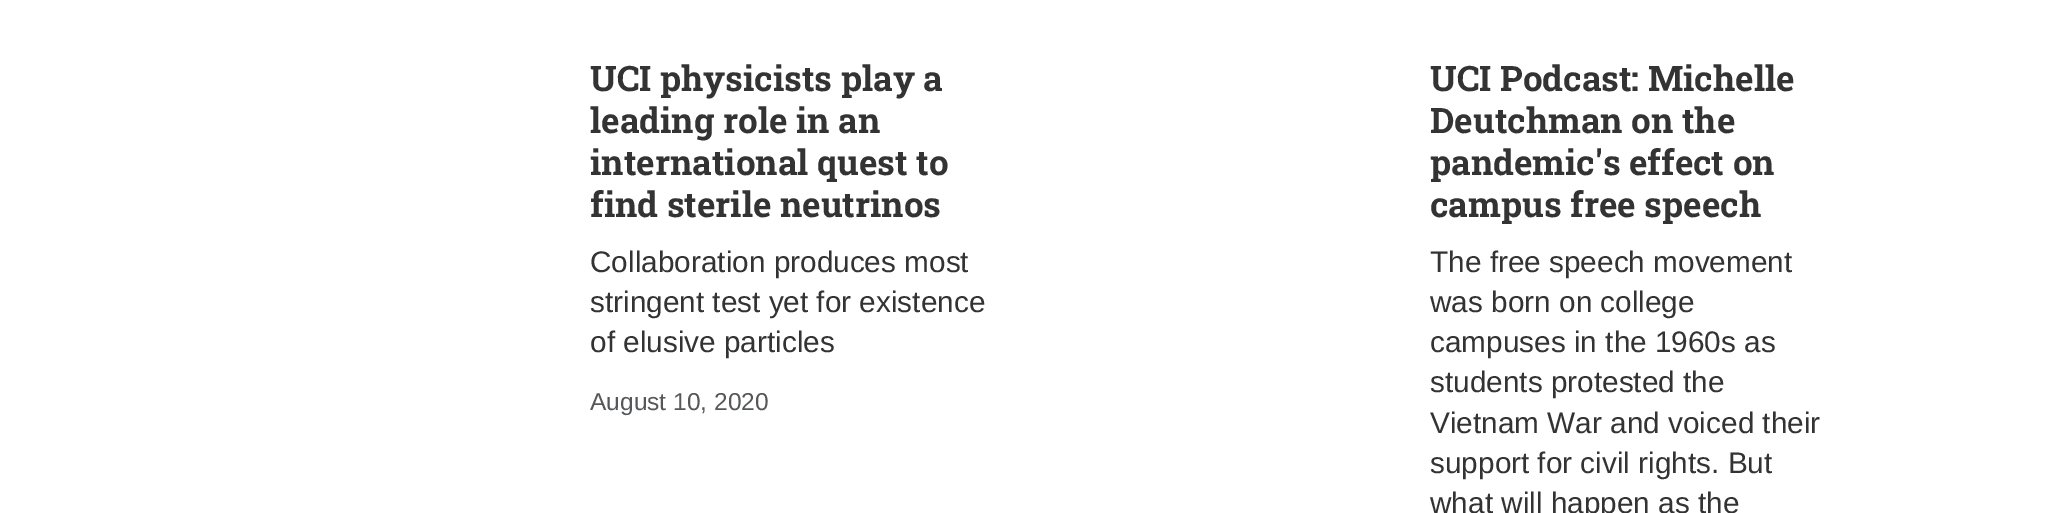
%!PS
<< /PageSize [2054 513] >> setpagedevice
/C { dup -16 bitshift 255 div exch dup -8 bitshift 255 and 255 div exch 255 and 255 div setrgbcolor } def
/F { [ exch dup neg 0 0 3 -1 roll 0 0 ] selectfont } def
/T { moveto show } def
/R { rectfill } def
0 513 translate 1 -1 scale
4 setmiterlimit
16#FFFFFF C
0 0 2054 513 R
/RobotoSlab-Bold 35 F
16#333333 C
(UCI physicists play a) 590 91 T
(leading role in an) 590 133 T
(international quest to) 590 175 T
(find sterile neutrinos) 590 217 T
/LiberationSans-Regular 29.75 F
(Collaboration produces most) 590 272 T
(stringent test yet for existence) 590 312 T
(of elusive particles) 590 352 T
/LiberationSans-Regular 24.5 F
16#555759 C
(August 10, 2020) 590 410 T
/RobotoSlab-Bold 35 F
16#333333 C
(UCI Podcast: Michelle) 1430 91 T
(Deutchman on the) 1430 133 T
(pandemic's effect on) 1430 175 T
(campus free speech) 1430 217 T
/LiberationSans-Regular 29.75 F
(The free speech movement) 1430 272 T
(was born on college) 1430 312 T
(campuses in the 1960s as) 1430 352 T
(students protested the) 1430 392 T
(Vietnam War and voiced their) 1430 433 T
(support for civil rights. But) 1430 473 T
(what will happen as the) 1430 513 T
showpage
